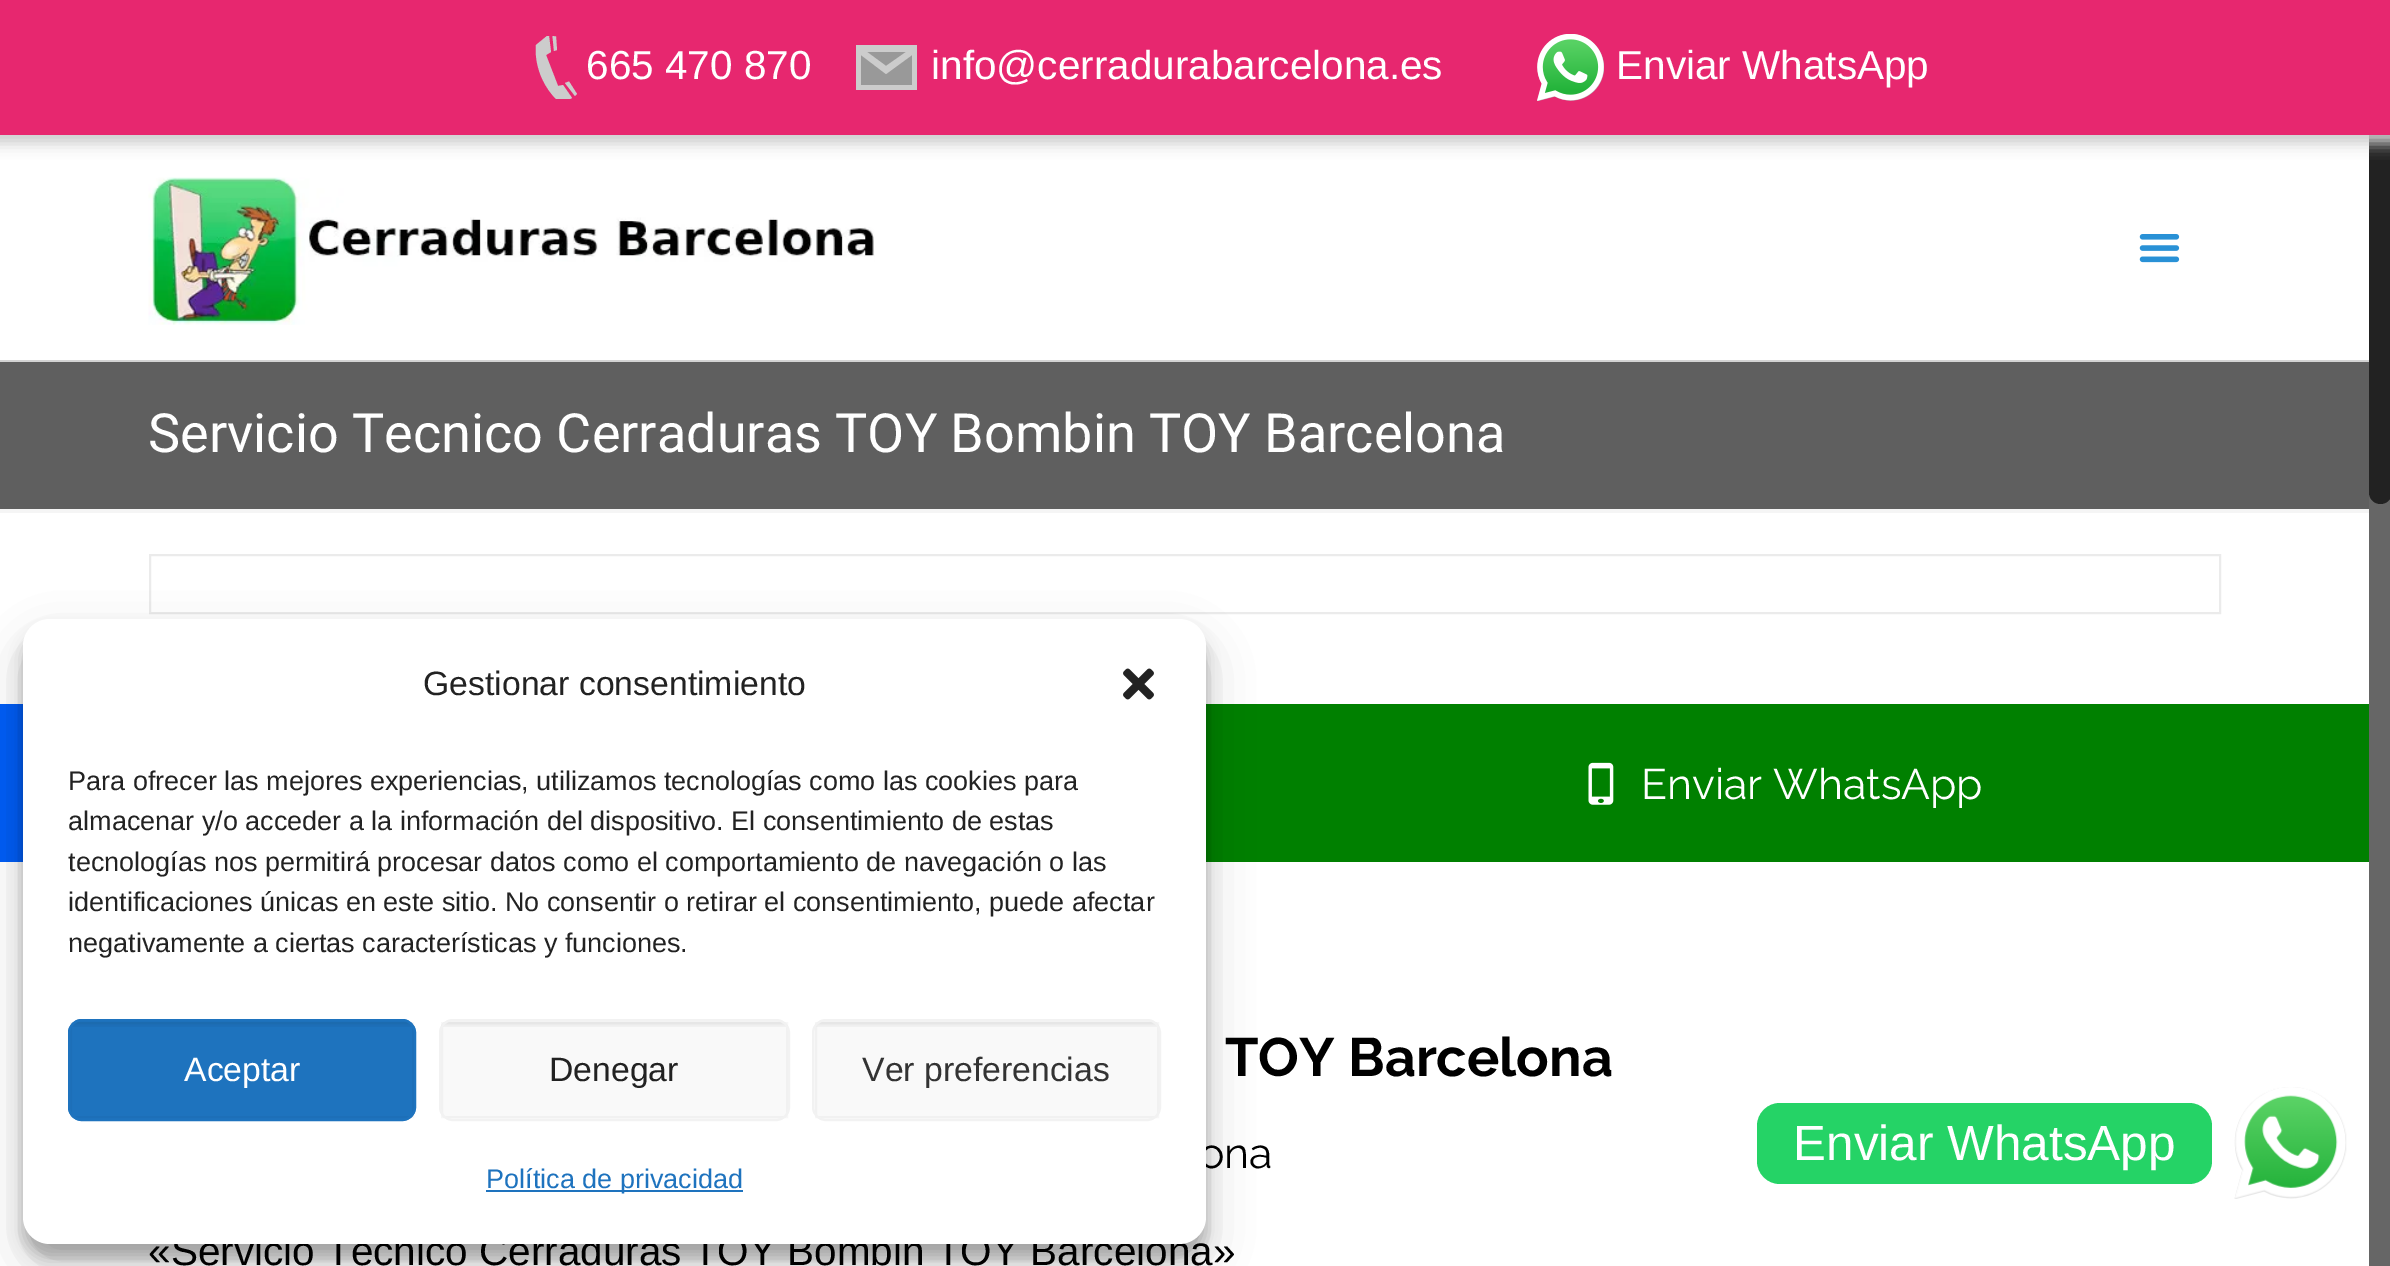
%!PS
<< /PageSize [2390 1266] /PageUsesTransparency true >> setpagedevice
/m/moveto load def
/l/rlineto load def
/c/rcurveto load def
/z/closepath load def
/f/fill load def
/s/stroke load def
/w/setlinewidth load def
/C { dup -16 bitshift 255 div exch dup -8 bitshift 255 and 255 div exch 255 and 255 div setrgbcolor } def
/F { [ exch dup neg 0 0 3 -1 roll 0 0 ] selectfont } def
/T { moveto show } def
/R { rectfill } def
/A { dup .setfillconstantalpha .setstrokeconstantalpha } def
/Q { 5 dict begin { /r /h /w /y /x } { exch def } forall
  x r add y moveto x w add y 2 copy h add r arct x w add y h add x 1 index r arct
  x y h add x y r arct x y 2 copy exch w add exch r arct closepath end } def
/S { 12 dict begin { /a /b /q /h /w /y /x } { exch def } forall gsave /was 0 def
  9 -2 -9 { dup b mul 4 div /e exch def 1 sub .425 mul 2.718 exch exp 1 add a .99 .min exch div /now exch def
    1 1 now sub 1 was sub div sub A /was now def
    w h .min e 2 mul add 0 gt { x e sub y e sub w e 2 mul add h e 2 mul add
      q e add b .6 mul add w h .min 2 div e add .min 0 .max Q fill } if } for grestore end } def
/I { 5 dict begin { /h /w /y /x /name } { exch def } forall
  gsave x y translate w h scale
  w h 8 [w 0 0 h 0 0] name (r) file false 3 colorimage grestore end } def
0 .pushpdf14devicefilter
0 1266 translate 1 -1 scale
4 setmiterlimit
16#FFFFFF C
0 0 2390 1266 R
16#666666 C
2369 492 21 774 R
16#222222 C
2369 0 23 504 11.5 Q f
16#CCCCCC C
-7 -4 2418 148 0 7 1 S
16#E7276F C
0 0 2390 135 R
/LiberationSans-Regular 40.5 F
16#FFFFFF C
(665 470 870) 586 79 T
16#CCCCCC C
536 45 m 0 0 -4 29 20 54 c 14 0 l 2 -1 l -9 -13 l -5 1 l -12 -31 l 5 -3 l -2 -16 l -2 0 l z f
552.5 36 m 1.5 15 l 3 -1 l -1 -13.5 l z 565 83 m 10 13 l 2 -2 l -8 -12.5 l z f
16#FFFFFF C
(info@cerradurabarcelona.es) 931 79 T
16#999999 C
861 52 51 33 R
16#CCCCCC C
856 45 m 0 45 l 61 0 l 0 -45 l z 906 52 m -20 14 l -19 -14 l z 912 85 m -51 0 l 0 -30 l 25 19 l 26 -19 l z f
(1.rgb) 1537 34 67 67 I
16#FFFFFF C
(Enviar WhatsApp) 1616 79 T
16#D3D3D3 C
0 360 2369 2 R
(2.rgb) 148 177 727 148 I
(3.rgb) 2139 234 41 29 I
16#5F5F5F C
0 362 2369 147 R
/Roboto-Regular 54 F
16#FFFFFF C
(Servicio Tecnico Cerraduras TOY Bombin TOY Barcelona) 148 452 T
16#F5F5F5 C
0 509 2369 4 R
16#EBEBEB C
2 w
150 555 2070 58 rectstroke
16#005DF6 C
0 704 23 158 R
16#008000 C
1206 704 1163 158 R
(4.rgb) 1588 762 26 43 I
/Raleway-Regular 42.75 F
16#FFFFFF C
(Enviar WhatsApp) 1641 799 T
/Raleway-Bold 54 F
16#000000 C
(TOY Barcelona) 1225 1076 T
/Raleway-Regular 42.75 F
(ona) 1199 1168 T
/LiberationSans-Regular 40.5 F
(«Servicio Tecnico Cerraduras TOY Bombin TOY Barcelona») 148 1265 T
23 632 1183 626 27 7 .23 S
23 641 1183 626 27 22.5 .19 S
16#FFFFFF C
23 619 1183 625 27 Q f
/LiberationSans-Regular 33.75 F
16#222222 C
(Gestionar consentimiento) 423 695 T
(5.rgb) 1123 668 31 32 I
/LiberationSans-Regular 27 F
(Para ofrecer las mejores experiencias, utilizamos tecnologías como las cookies para) 68 790 T
(almacenar y/o acceder a la información del dispositivo. El consentimiento de estas) 68 830 T
(tecnologías nos permitirá procesar datos como el comportamiento de navegación o las) 68 871 T
(identificaciones únicas en este sitio. No consentir o retirar el consentimiento, puede afectar) 68 911 T
(negativamente a ciertas características y funciones.) 68 952 T
16#1E73BE C
68 1019 348 102 14 Q f
(6.rgb) 69 1021 345 6 I
0.03 A
16#000000 C
71 1023 342 94 rectstroke
1 A
16#1E73BE C
69 1020 346 100 13 Q s
/LiberationSans-Regular 33.75 F
16#FFFFFF C
(Aceptar) 184 1081 T
16#F9F9F9 C
439 1019 351 102 14 Q f
(7.rgb) 441 1021 347 6 I
0.03 A
16#000000 C
442 1023 345 94 rectstroke
1 A
16#F2F2F2 C
440 1020 349 100 13 Q s
16#222222 C
(Denegar) 549 1081 T
16#F9F9F9 C
812 1019 349 102 14 Q f
(8.rgb) 814 1021 345 6 I
0.03 A
16#000000 C
816 1023 342 94 rectstroke
1 A
16#F2F2F2 C
813 1020 347 100 13 Q s
16#333333 C
(Ver preferencias) 862 1081 T
16#1E73BE C
486 1190 257 2 R
/LiberationSans-Regular 27 F
(Política de privacidad) 486 1188 T
16#25D366 C
1757 1103 455 81 23 Q f
/LiberationSans-Regular 49.5 F
16#FFFFFF C
(Enviar WhatsApp) 1793 1160 T
(9.rgb) 2234 1087 113 112 I
.poppdf14devicefilter showpage
